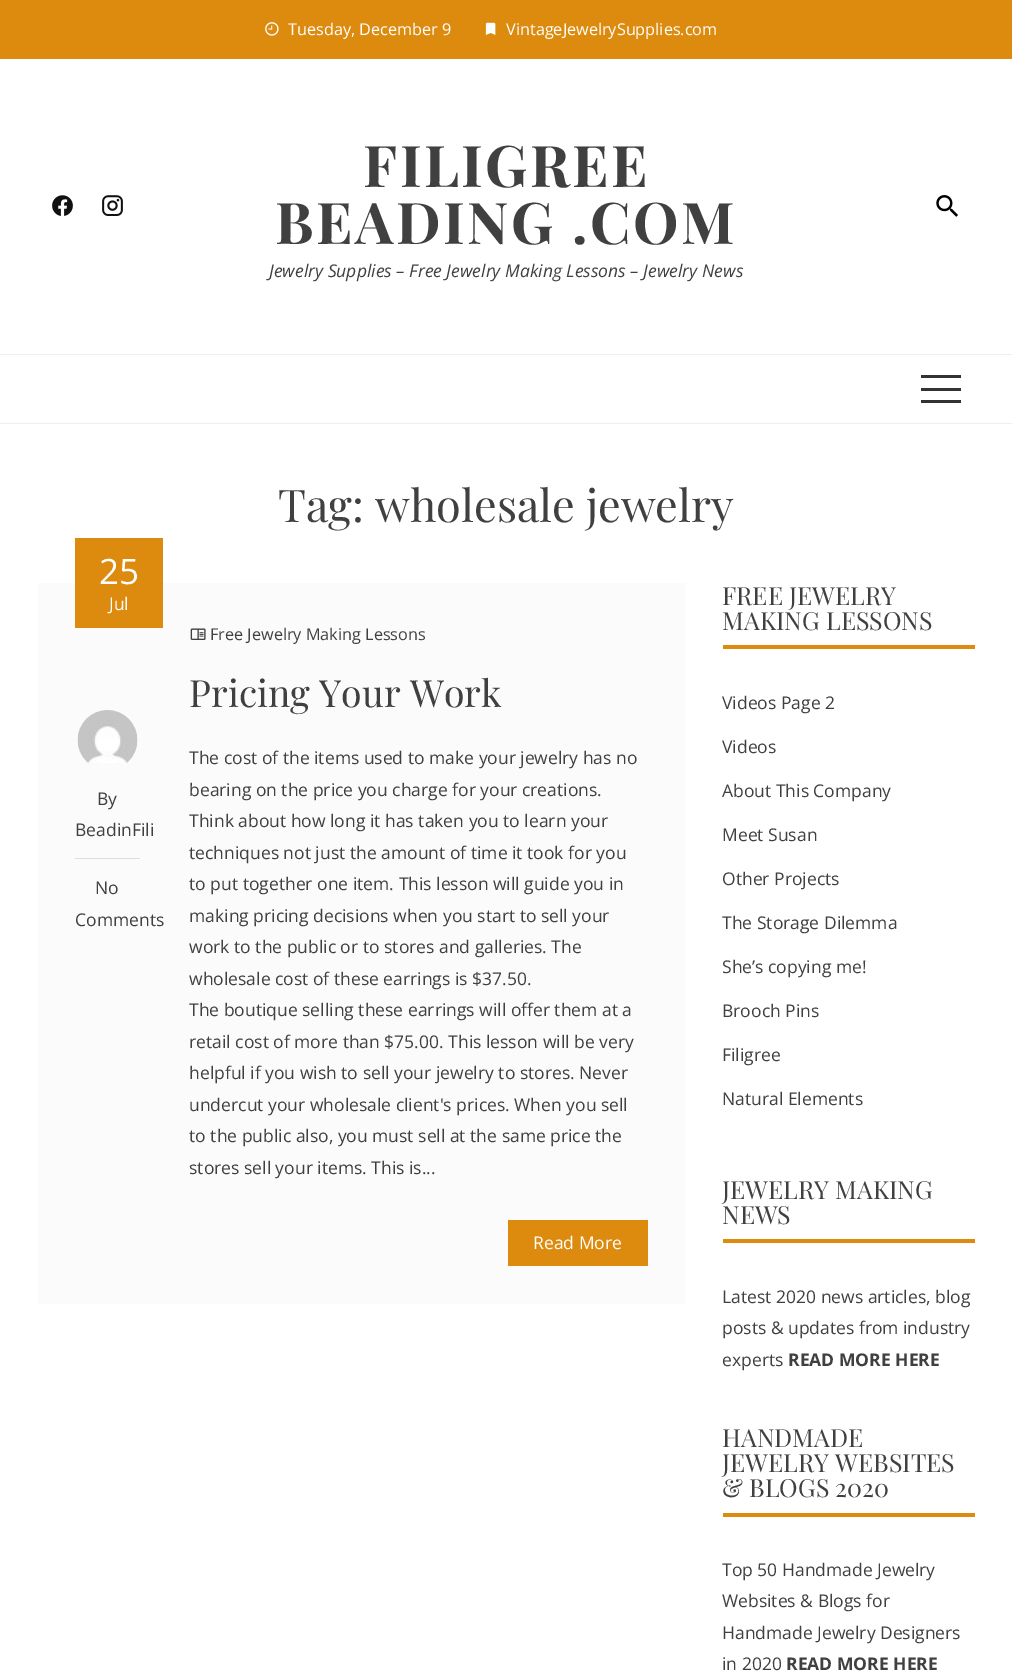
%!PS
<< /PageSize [1012 1671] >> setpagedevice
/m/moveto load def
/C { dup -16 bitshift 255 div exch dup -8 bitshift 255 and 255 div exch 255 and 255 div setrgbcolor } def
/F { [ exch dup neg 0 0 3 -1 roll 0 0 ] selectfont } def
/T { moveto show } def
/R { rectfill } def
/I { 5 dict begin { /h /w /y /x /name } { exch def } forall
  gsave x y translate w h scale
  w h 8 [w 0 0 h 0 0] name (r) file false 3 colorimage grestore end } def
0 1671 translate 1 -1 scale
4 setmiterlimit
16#FFFFFF C
0 0 1012 1671 R
16#DD8B0F C
0 0 1012 59 R
(1.rgb) 265 22 14 14 I
/OpenSans-Regular 16.25 F
16#FFFFFF C
(Tuesday, December 9) 288 35 T
(2.rgb) 485 22 11 13 I
(VintageJewelrySupplies.com) 506 35 T
(3.rgb) 52 195 21 21 I
(4.rgb) 102 195 21 21 I
/PlayfairDisplay-Bold 57.5 F
16#404040 C
363 187 m 2.5 0 (FILIGREE) ashow
275 244 m 2.5 0 (BEADING .COM) ashow
/OpenSans-Italic 17.5 F
(Jewelry Supplies – Free Jewelry Making Lessons – Jewelry News) 269 277 T
(5.rgb) 936 195 22 22 I
16#EEEEEE C
0 354 1012 1 R
0 423 1012 1 R
16#333333 C
921 375 40 3 R
921 400 40 3 R
921 388 40 3 R
/PlayfairDisplay-Regular 45 F
16#404040 C
(Tag: wholesale jewelry) 278 522 T
16#FBFBFB C
38 583 647 721 R
16#DD8B0F C
75 538 88 90 R
/OpenSans-Regular 35 F
16#FFFFFF C
(25) 99 584 T
/OpenSans-Regular 17.5 F
(Jul) 109 610 T
16#DDDDDD C
75 858 65 1 R
(6.rgb) 77 710 61 53 I
16#404040 C
(By) 97 805 T
(BeadinFili) 75 836 T
(No) 95 894 T
(Comments) 75 926 T
(7.rgb) 190 628 16 12 I
/OpenSans-Regular 16.25 F
(Free Jewelry Making Lessons) 210 640 T
/PlayfairDisplay-Regular 37.5 F
(Pricing Your Work) 189 707 T
/OpenSans-Regular 17.5 F
(The cost of the items used to make your jewelry has no) 189 764 T
(bearing on the price you charge for your creations.) 189 796 T
(Think about how long it has taken you to learn your) 189 827 T
(techniques not just the amount of time it took for you) 189 859 T
(to put together one item. This lesson will guide you in) 189 890 T
(making pricing decisions when you start to sell your) 189 922 T
(work to the public or to stores and galleries. The) 189 953 T
(wholesale cost of these earrings is $37.50.) 189 985 T
(The boutique selling these earrings will offer them at a) 189 1016 T
(retail cost of more than $75.00. This lesson will be very) 189 1048 T
(helpful if you wish to sell your jewelry to stores. Never) 189 1079 T
(undercut your wholesale client's prices. When you sell) 189 1111 T
(to the public also, you must sell at the same price the) 189 1142 T
(stores sell your items. This is...) 189 1174 T
16#DD8B0F C
508 1220 140 46 R
16#FFFFFF C
(Read More) 533 1249 T
/PlayfairDisplay-Regular 25 F
16#404040 C
(FREE JEWELRY) 722 605 T
(MAKING LESSONS) 722 630 T
16#DD8B0F C
723 645 252 4 R
/OpenSans-Regular 17.5 F
16#404040 C
(Videos Page 2) 722 709 T
(Videos) 722 753 T
(About This Company) 722 797 T
(Meet Susan) 722 841 T
(Other Projects) 722 885 T
(The Storage Dilemma) 722 929 T
(She’s copying me!) 722 973 T
(Brooch Pins) 722 1017 T
(Filigree) 722 1061 T
(Natural Elements) 722 1105 T
/PlayfairDisplay-Regular 25 F
(JEWELRY MAKING) 722 1199 T
(NEWS) 722 1224 T
16#DD8B0F C
723 1239 252 4 R
/OpenSans-Regular 17.5 F
16#404040 C
(Latest 2020 news articles, blog) 722 1303 T
(posts & updates from industry) 722 1334 T
(experts) 722 1366 T
/OpenSans-Bold 17.5 F
(READ MORE HERE) 788 1366 T
/PlayfairDisplay-Regular 25 F
(HANDMADE) 722 1447 T
(JEWELRY WEBSITES) 722 1472 T
(& BLOGS 2020) 722 1497 T
16#DD8B0F C
723 1513 252 4 R
/OpenSans-Regular 17.5 F
16#404040 C
(Top 50 Handmade Jewelry) 722 1576 T
(Websites & Blogs for) 722 1607 T
(Handmade Jewelry Designers) 722 1639 T
(in 2020) 722 1670 T
/OpenSans-Bold 17.5 F
(READ MORE HERE) 786 1670 T
showpage
